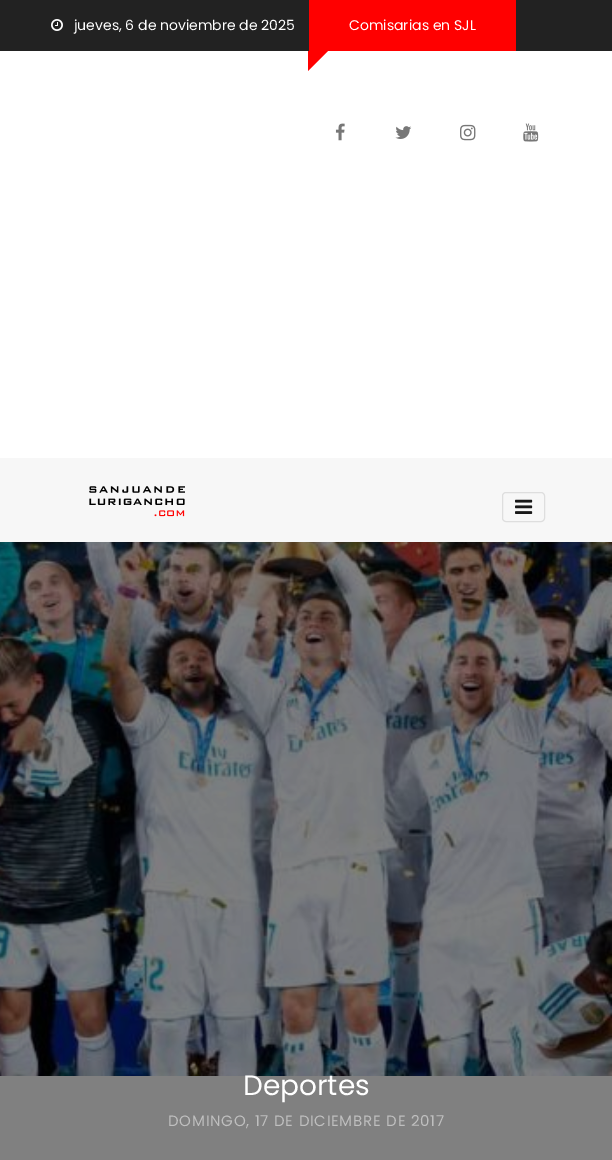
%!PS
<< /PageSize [612 1160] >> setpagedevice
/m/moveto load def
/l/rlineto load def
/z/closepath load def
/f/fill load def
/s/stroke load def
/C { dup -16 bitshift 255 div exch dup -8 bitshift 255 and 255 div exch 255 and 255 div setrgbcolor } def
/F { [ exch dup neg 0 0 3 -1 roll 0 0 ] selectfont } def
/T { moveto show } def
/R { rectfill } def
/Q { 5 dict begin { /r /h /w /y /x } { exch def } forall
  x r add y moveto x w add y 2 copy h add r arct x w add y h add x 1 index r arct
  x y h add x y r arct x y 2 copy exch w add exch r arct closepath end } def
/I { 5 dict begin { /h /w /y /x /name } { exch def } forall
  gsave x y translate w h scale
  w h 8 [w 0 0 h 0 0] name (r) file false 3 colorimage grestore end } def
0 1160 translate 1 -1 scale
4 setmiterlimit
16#FFFFFF C
0 0 612 1160 R
16#808080 C
0 1076 612 84 R
16#222222 C
0 0 612 51 R
(1.rgb) 51 19 12 12 I
/Poppins-Regular 14 F
16#FFFFFF C
(jueves, 6 de noviembre de 2025) 74 30 T
16#FF0000 C
309 0 207 51 R
16#FFFFFF C
(Comisarias en SJL) 349 30 T
16#FF0000 C
308 51 m 20 0 l -20 20 l z f
(2.rgb) 335 123 10 18 I
(3.rgb) 395 126 17 13 I
(4.rgb) 460 124 16 17 I
(5.rgb) 523 123 16 19 I
16#F7F7F7 C
0 458 612 84 R
(6.rgb) 89 486 96 31 I
16#DEDEDE C
502.5 492.5 42 29 3.5 Q s
(7.rgb) 515 499 18 15 I
(8.rgb) 0 542 612 534 I
/Poppins-Regular 28 F
16#FFFFFF C
(Deportes) 243 1095 T
/Poppins-Regular 15 F
16#BFBFBF C
168 1126 m .75 0 (DOMINGO, 17 DE DICIEMBRE DE 2017) ashow
showpage
